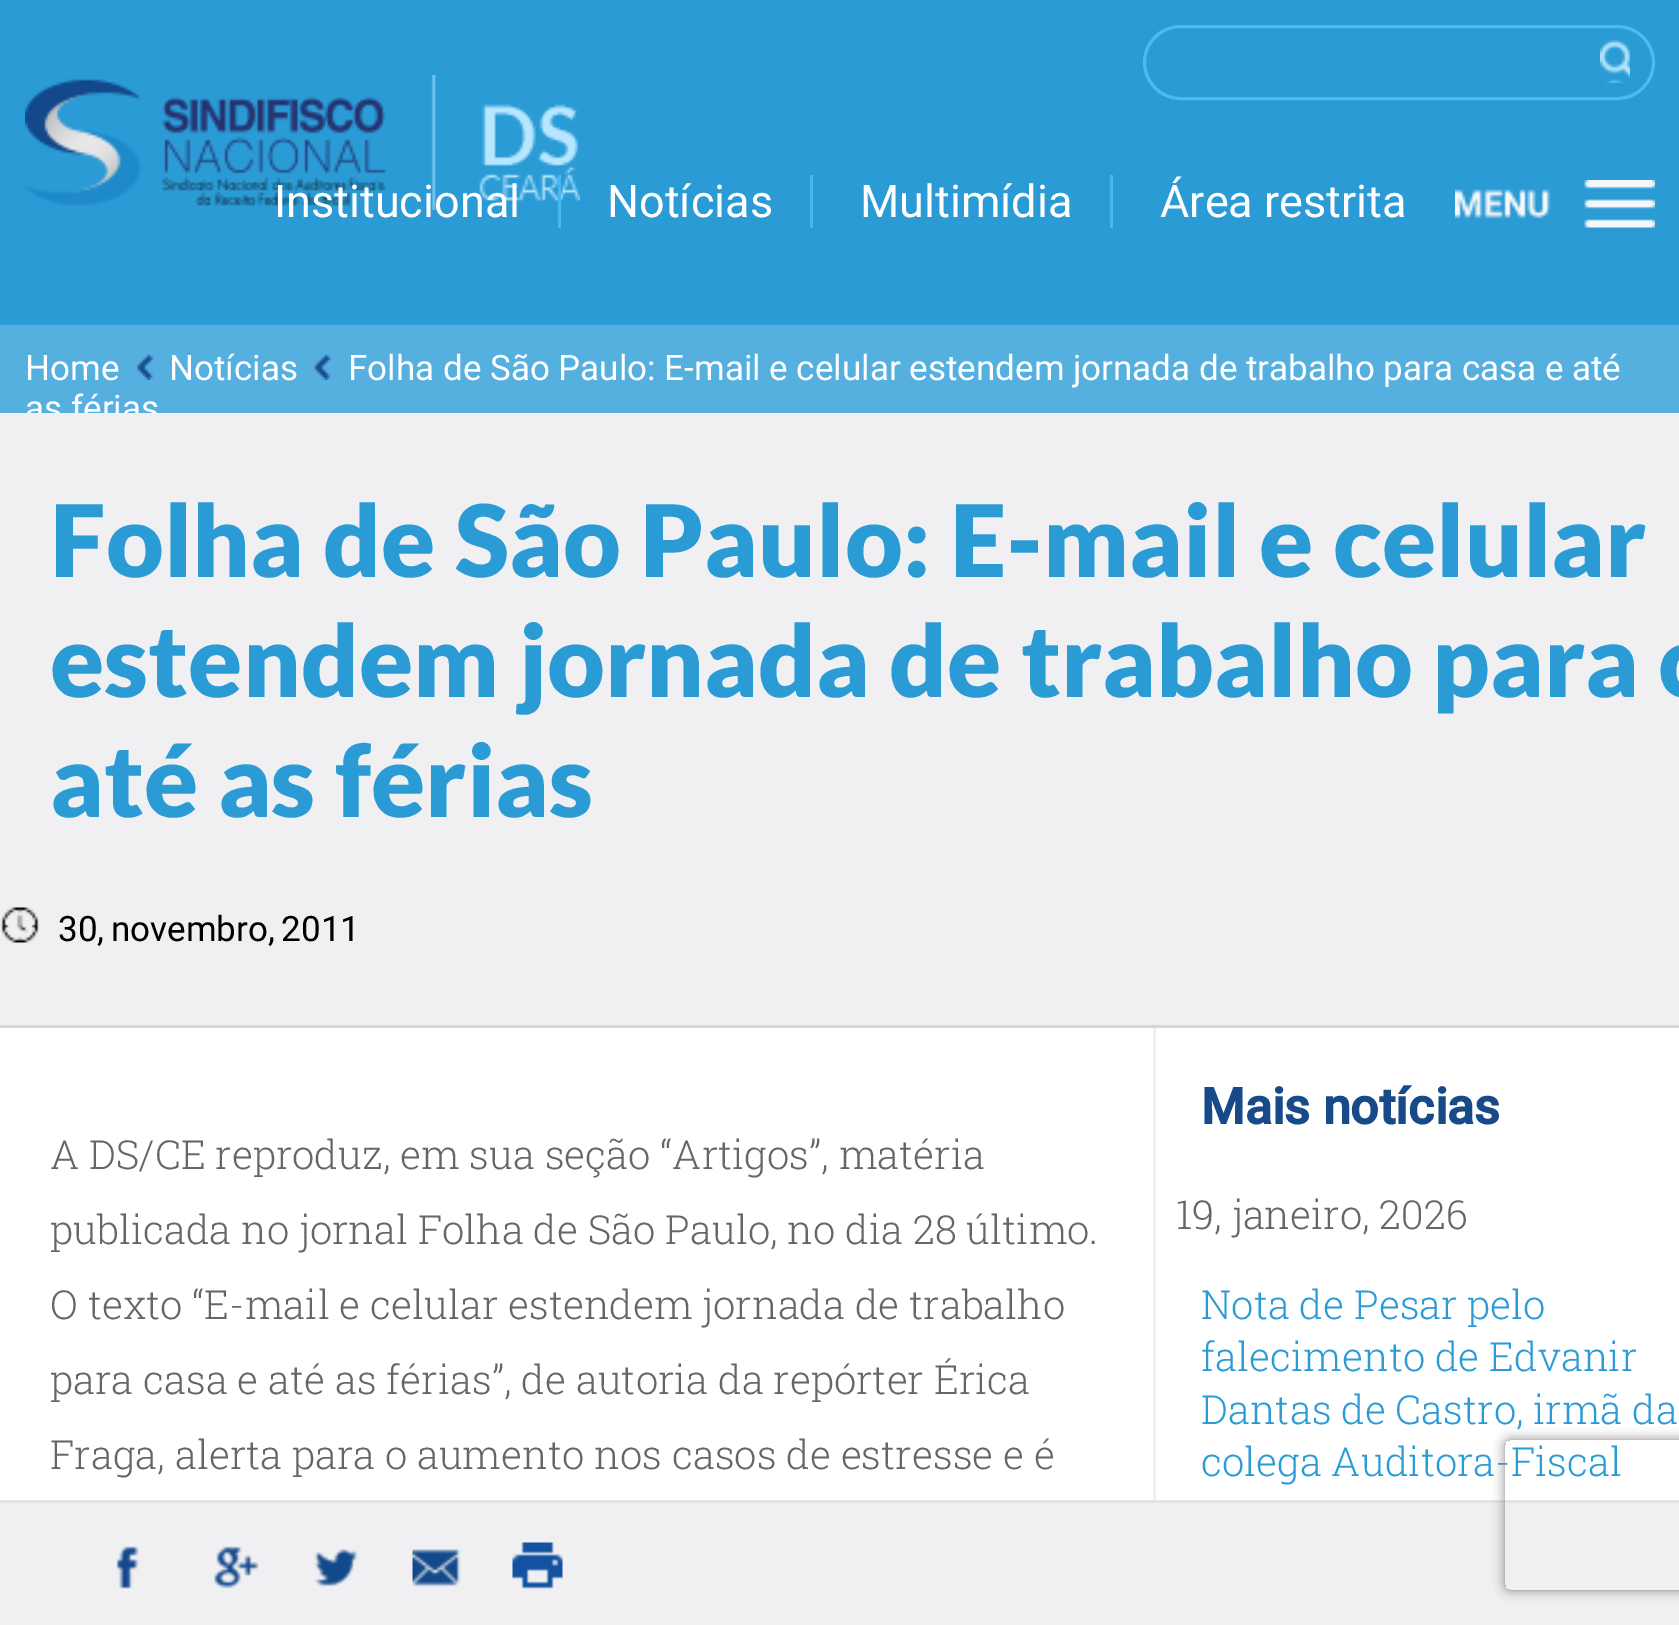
%!PS
<< /PageSize [1679 1625] /PageUsesTransparency true >> setpagedevice
/m/moveto load def
/l/rlineto load def
/c/rcurveto load def
/z/closepath load def
/s/stroke load def
/q/gsave load def
/Q_/grestore load def
/w/setlinewidth load def
/C { dup -16 bitshift 255 div exch dup -8 bitshift 255 and 255 div exch 255 and 255 div setrgbcolor } def
/F { [ exch dup neg 0 0 3 -1 roll 0 0 ] selectfont } def
/T { moveto show } def
/R { rectfill } def
/A { dup .setfillconstantalpha .setstrokeconstantalpha } def
/Q { 5 dict begin { /r /h /w /y /x } { exch def } forall
  x r add y moveto x w add y 2 copy h add r arct x w add y h add x 1 index r arct
  x y h add x y r arct x y 2 copy exch w add exch r arct closepath end } def
/S { 12 dict begin { /a /b /q /h /w /y /x } { exch def } forall gsave /was 0 def
  9 -2 -9 { dup b mul 4 div /e exch def 1 sub .425 mul 2.718 exch exp 1 add a .99 .min exch div /now exch def
    1 1 now sub 1 was sub div sub A /was now def
    w h .min e 2 mul add 0 gt { x e sub y e sub w e 2 mul add h e 2 mul add
      q e add b .6 mul add w h .min 2 div e add .min 0 .max Q fill } if } for grestore end } def
/I { 5 dict begin { /h /w /y /x /name } { exch def } forall
  gsave x y translate w h scale
  w h 8 [w 0 0 h 0 0] name (r) file false 3 colorimage grestore end } def
0 .pushpdf14devicefilter
0 1625 translate 1 -1 scale
4 setmiterlimit
16#FFFFFF C
0 0 1679 1625 R
16#2B9BD6 C
0 0 1679 325 R
16#4BBBF6 C
3 w
1144.5 26.5 509 72 36 Q s
(1.rgb) 1600 40 30 43 I
(2.rgb) 25 75 555 135 I
/Roboto-Regular 45 F
16#FFFFFF C
(Institucional) 274 217 T
16#48B6F0 C
558 175 3 53 R
16#FFFFFF C
(Notícias) 607 217 T
16#48B6F0 C
810 175 3 53 R
16#FFFFFF C
(Multimídia) 860 217 T
16#48B6F0 C
1110 175 3 53 R
16#FFFFFF C
(Área restrita) 1160 217 T
(3.rgb) 1455 180 200 48 I
16#56B0DF C
0 325 1679 88 R
/Roboto-Regular 35 F
16#FFFFFF C
(Home) 25 380 T
(4.rgb) 136 354 18 26 I
(Notícias) 169 380 T
(5.rgb) 314 354 17 26 I
(Folha de São Paulo: E-mail e celular estendem jornada de trabalho para casa e até) 348 380 T
(as férias) 25 420 T
16#F0F0F2 C
0 413 1679 612 R
16#D6D6D6 C
0 1025 1679 3 R
/Lato-Black 100 F
16#2B9BD6 C
(Folha de São Paulo: E-mail e celular) 50 577 T
(estendem jornada de trabalho para c) 50 697 T
(até as férias) 50 817 T
(6.rgb) 0 907 40 36 I
/Roboto-Regular 35 F
16#000000 C
58 941 m -2 0 32 (30, novembro, 2011) widthshow
16#F0F0F2 C
1153 1028 3 472 R
/RobotoSlab-Light 40 F
16#666666 C
(A DS/CE reproduz, em sua seção “Artigos”, matéria) 50 1169 T
(publicada no jornal Folha de São Paulo, no dia 28 último.) 50 1244 T
(O texto “E-mail e celular estendem jornada de trabalho) 50 1319 T
(para casa e até as férias”, de autoria da repórter Érica) 50 1394 T
(Fraga, alerta para o aumento nos casos de estresse e é) 50 1469 T
/Roboto-Bold 50 F
16#174A89 C
(Mais notícias) 1201 1124 T
/RobotoSlab-Light 40 F
16#666666 C
(19, janeiro, 2026) 1176 1229 T
16#2B9BD6 C
(Nota de Pesar pelo) 1201 1319 T
(falecimento de Edvanir) 1201 1371 T
(Dantas de Castro, irmã da) 1201 1424 T
(colega Auditora-Fiscal) 1201 1476 T
16#F0F0F2 C
0 1503 1679 122 R
16#E3E3E3 C
0 1500 1679 3 R
(7.rgb) 116 1546 23 43 I
(8.rgb) 214 1546 45 43 I
(9.rgb) 314 1549 44 38 I
(10.rgb) 412 1549 49 38 I
(11.rgb) 512 1542 51 47 I
q
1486 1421 m 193 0 l 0 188 l -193 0 l z 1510 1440 m 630 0 l 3 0 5 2 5 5 c 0 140 l 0 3 -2 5 -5 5 c -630 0 l -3 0 -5 -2 -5 -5 c 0 -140 l 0 -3 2 -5 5 -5 c z eoclip newpath
16#808080 C
1505 1440 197 150 5 6 1 S
Q_
.poppdf14devicefilter showpage
